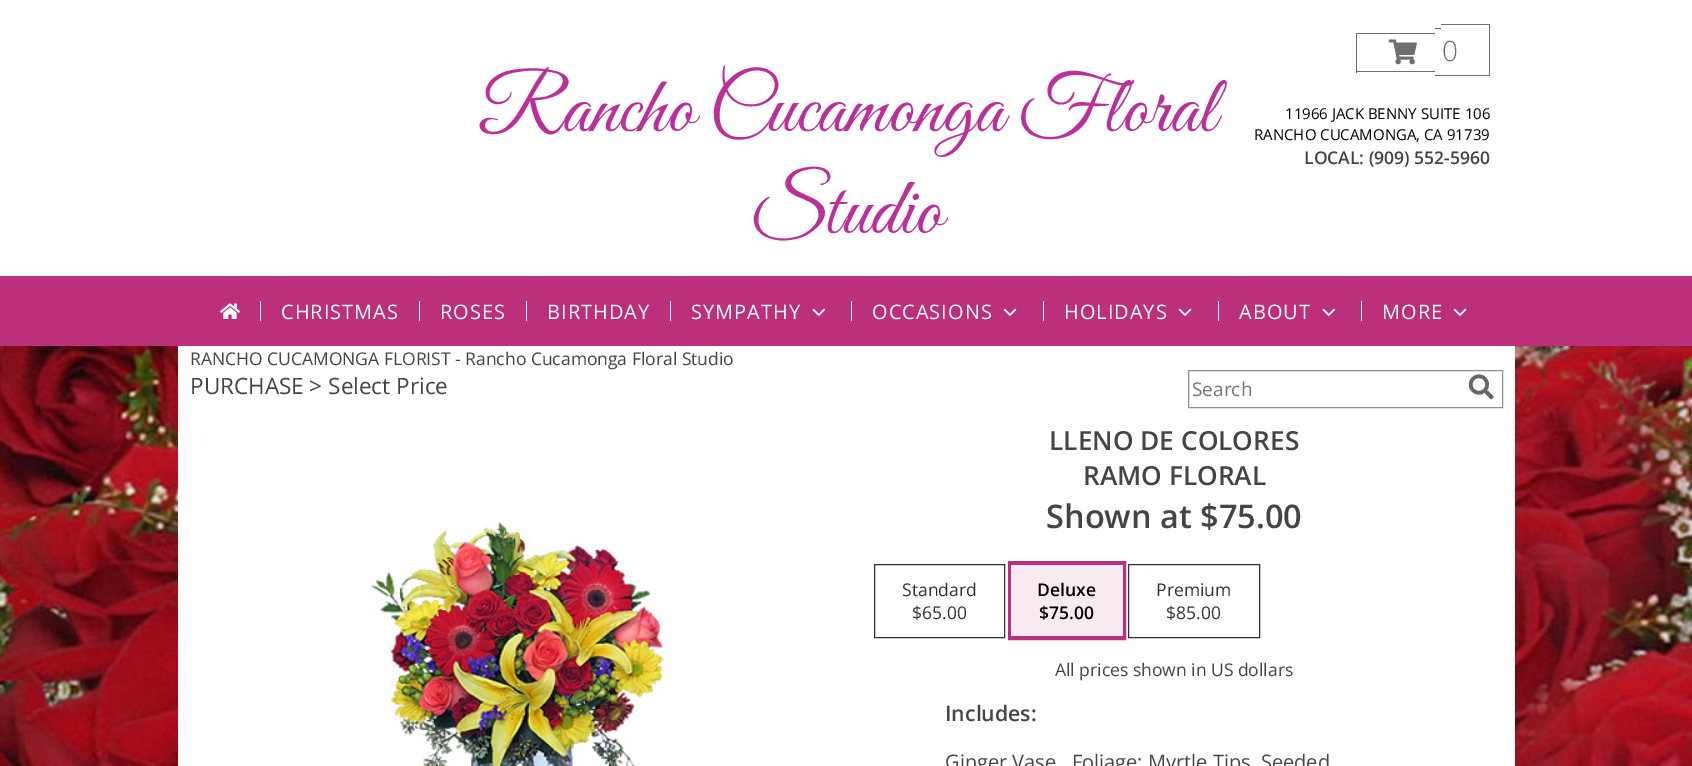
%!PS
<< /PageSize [1692 766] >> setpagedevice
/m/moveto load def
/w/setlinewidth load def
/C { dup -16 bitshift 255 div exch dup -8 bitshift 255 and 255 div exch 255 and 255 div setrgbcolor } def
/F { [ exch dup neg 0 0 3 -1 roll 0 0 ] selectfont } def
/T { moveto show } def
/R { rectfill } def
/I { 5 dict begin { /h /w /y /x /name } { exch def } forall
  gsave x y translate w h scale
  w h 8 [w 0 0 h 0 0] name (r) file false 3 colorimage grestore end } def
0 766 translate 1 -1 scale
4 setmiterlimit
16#FFFFFF C
0 0 1692 766 R
(1.rgb) 0 346 1692 420 I
178 346 1337 420 R
/GreatVibes-Regular 81.25 F
16#BC2F99 C
478 131 m 1 0 32 (Rancho Cucamonga Floral) widthshow
(Studio) 750 233 T
16#6E6E6E C
1356 33 79 1 R
1356 71 79 1 R
1356 33 1 40 R
1435 28 6 1 R
1435 75 6 1 R
1441 24 49 1 R
1489 24 1 52 R
1441 75 49 1 R
(2.rgb) 1388 39 29 26 I
/OpenSans-Light 28 F
(0) 1442 61 T
/OpenSans-Regular 15 F
16#000000 C
(11966 JACK BENNY SUITE 106) 1285 119 T
(RANCHO CUCAMONGA, CA 91739) 1254 140 T
/OpenSans-SemiBold 17.5 F
16#444444 C
(LOCAL: \(909\) 552-5960) 1304 164 T
16#BC2F7B C
0 276 1692 70 R
(3.rgb) 220 303 20 16 I
16#FFFFFF C
260 301 1 20 R
/OpenSans-Regular 20 F
281 319 m 1 0 (CHRISTMAS) ashow
419 301 1 20 R
440 319 m 1 0 (ROSES) ashow
526 301 1 20 R
547 319 m 1 0 (BIRTHDAY) ashow
670 301 1 20 R
691 319 m 1 0 (SYMPATHY) ashow
(4.rgb) 812 308 13 8 I
851 301 1 20 R
872 319 m 1 0 (OCCASIONS) ashow
(5.rgb) 1003 308 14 8 I
1043 301 1 20 R
1064 319 m 1 0 (HOLIDAYS) ashow
(5.rgb) 1178 308 14 8 I
1218 301 1 20 R
1239 319 m 1 0 (ABOUT) ashow
(4.rgb) 1322 308 13 8 I
1361 301 1 20 R
1382 319 m 1 0 (MORE) ashow
(5.rgb) 1453 308 14 8 I
/OpenSans-Regular 17.5 F
16#444444 C
(RANCHO CUCAMONGA FLORIST - Rancho Cucamonga Floral Studio) 190 365 T
/OpenSans-Regular 22.5 F
(PURCHASE > Select Price) 190 394 T
16#919191 C
1188.5 370.5 314 37 rectstroke
/OpenSans-Regular 19 F
16#757575 C
(Search) 1192 396 T
(6.rgb) 1468 374 26 26 I
(7.rgb) 371 518 294 248 I
/OpenSans-SemiBold 26.25 F
16#444444 C
(LLENO DE COLORES) 1049 450 T
(RAMO FLORAL) 1083 485 T
/OpenSans-SemiBold 32.5 F
(Shown at $75.00) 1046 528 T
16#333333 C
874.5 564.5 130 73 rectstroke
/OpenSans-Regular 17.5 F
(Standard) 902 596 T
($65.00) 912 619 T
16#BC2F7B C
4 w
1010 563 114 75 rectstroke
16#F8EAF1 C
1011 565 112 71 R
/OpenSans-SemiBold 17.5 F
16#000000 C
(Deluxe) 1037 596 T
($75.00) 1039 619 T
16#333333 C
1 w
1128.5 564.5 131 73 rectstroke
/OpenSans-Regular 17.5 F
(Premium) 1156 596 T
($85.00) 1166 619 T
16#444444 C
(All prices shown in US dollars) 1055 676 T
/OpenSans-SemiBold 21.25 F
(Includes:) 945 721 T
/OpenSans-Regular 20 F
(Ginger Vase , Foliage: Myrtle Tips, Seeded) 945 769 T
showpage
